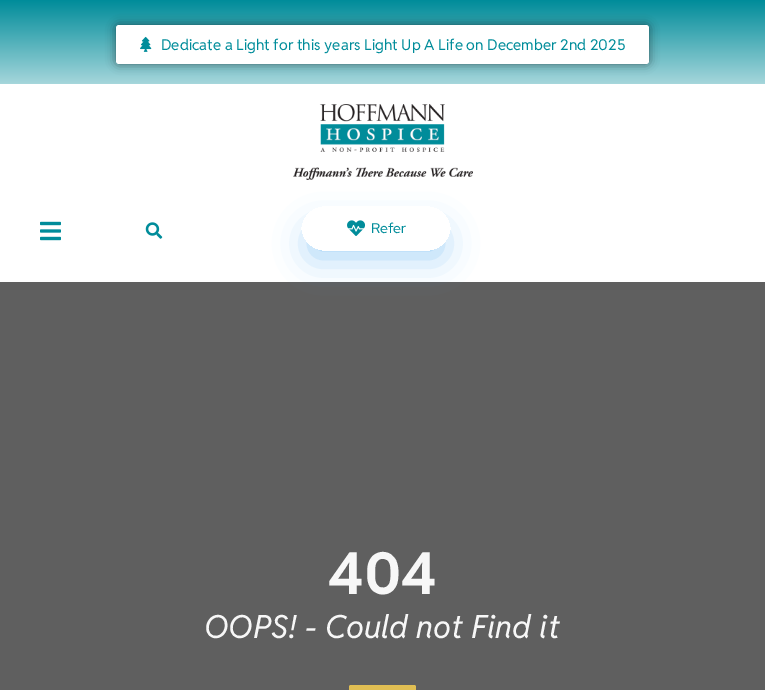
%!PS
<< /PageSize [765 690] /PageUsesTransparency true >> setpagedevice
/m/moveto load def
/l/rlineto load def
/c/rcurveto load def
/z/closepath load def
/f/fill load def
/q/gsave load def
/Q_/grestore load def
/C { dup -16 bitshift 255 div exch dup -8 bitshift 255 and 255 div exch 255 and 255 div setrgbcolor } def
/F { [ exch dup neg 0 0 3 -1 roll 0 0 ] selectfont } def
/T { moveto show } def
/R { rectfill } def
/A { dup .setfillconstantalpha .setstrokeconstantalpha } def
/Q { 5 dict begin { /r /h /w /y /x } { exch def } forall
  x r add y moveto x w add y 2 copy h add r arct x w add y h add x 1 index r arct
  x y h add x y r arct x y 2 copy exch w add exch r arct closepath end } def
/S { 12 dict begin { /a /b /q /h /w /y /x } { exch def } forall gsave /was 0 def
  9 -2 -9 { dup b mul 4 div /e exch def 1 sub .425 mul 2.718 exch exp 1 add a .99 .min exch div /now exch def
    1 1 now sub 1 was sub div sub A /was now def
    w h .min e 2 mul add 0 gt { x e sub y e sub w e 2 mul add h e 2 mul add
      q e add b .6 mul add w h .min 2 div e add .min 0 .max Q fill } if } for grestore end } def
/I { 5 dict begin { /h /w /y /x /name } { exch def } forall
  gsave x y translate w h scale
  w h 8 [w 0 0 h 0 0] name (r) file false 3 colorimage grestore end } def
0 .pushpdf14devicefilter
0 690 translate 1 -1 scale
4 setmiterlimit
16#FFFFFF C
0 0 765 690 R
q 0 0 m 765 0 l 0 84 l -765 0 l z clip newpath
<< /ShadingType 2 /ColorSpace /DeviceRGB /Coords [383 0 383 84] /Extend [true true] /Function << /FunctionType 2 /Domain [0 1] /C0 [0 .549 .604] /C1 [.647 .839 .859] /N 1 >> >> shfill Q_
16#000000 C
116 25 533 39 3 5 .5 S
16#FFFFFF C
116 25 533 39 3 Q f
(1.rgb) 140 36 12 16 I
/RedditSans-Regular 15 F
16#008C9A C
(Dedicate a Light for this years Light Up A Life on December 2nd 2025) 161 50 T
(2.rgb) 293 104 180 76 I
(3.rgb) 40 221 21 20 I
(4.rgb) 145 222 18 17 I
16#5F5F5F C
0 282 765 408 R
q
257 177 m 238 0 l 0 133 l -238 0 l z 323.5 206 m 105 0 l 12.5 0 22.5 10 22.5 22.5 c 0 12.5 -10 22.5 -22.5 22.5 c -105 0 l -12.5 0 -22.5 -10 -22.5 -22.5 c 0 -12.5 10 -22.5 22.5 -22.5 c z eoclip newpath
16#43A3EC C
311 231 130 25 12.5 17.5 .5 S
Q_
(5.rgb) 347 220 18 16 I
/RedHatDisplay-Medium 14 F
16#008C9A C
(Refer) 371 233 T
/RedditSans-Bold 58 F
16#F7F7F7 C
(404) 328 594 T
/RedditSans-Italic 32 F
(OOPS! - Could not Find it) 204 638 T
16#E0BE53 C
349 685 67 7 2 Q f
.poppdf14devicefilter showpage
